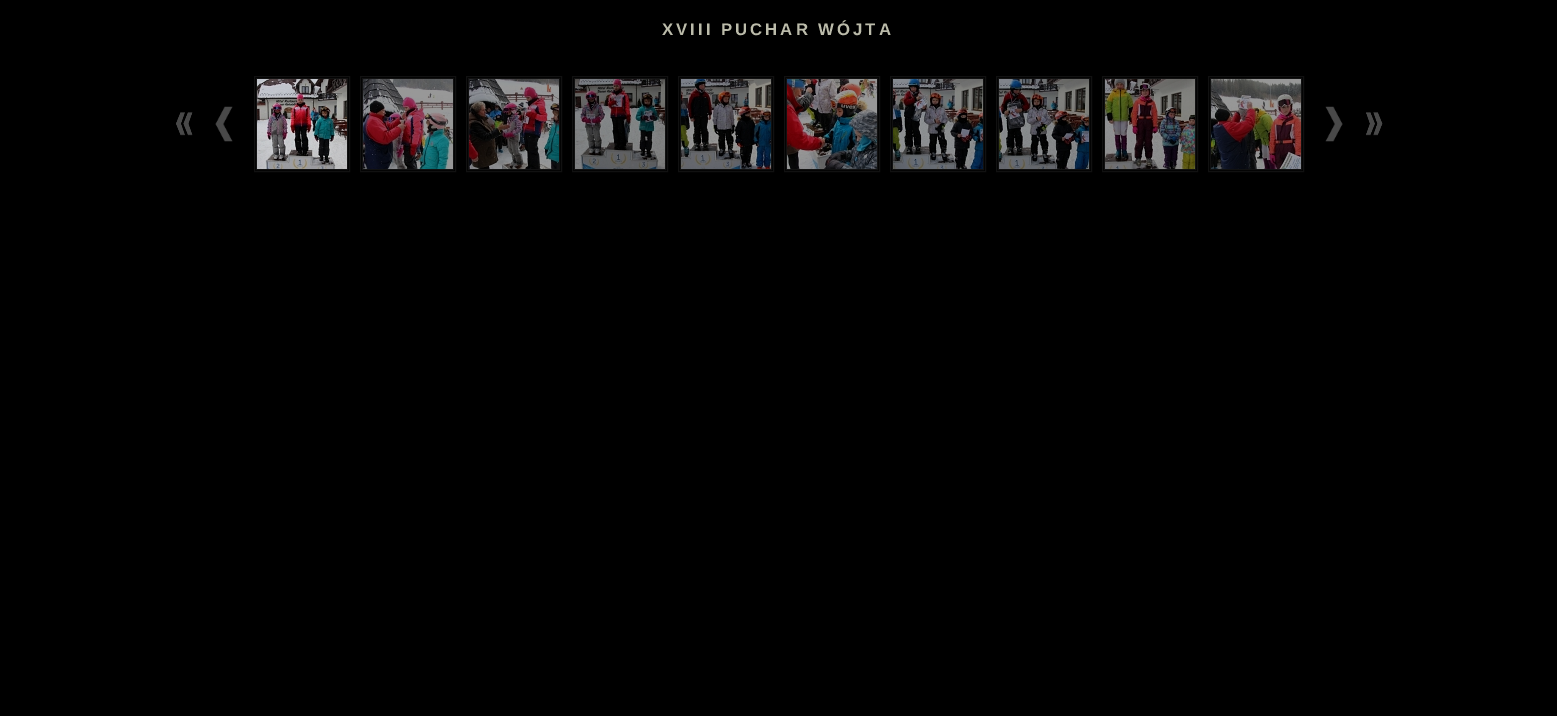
%!PS
<< /PageSize [1557 716] >> setpagedevice
/m/moveto load def
/C { dup -16 bitshift 255 div exch dup -8 bitshift 255 and 255 div exch 255 and 255 div setrgbcolor } def
/F { [ exch dup neg 0 0 3 -1 roll 0 0 ] selectfont } def
/R { rectfill } def
/I { 5 dict begin { /h /w /y /x /name } { exch def } forall
  gsave x y translate w h scale
  w h 8 [w 0 0 h 0 0] name (r) file false 3 colorimage grestore end } def
0 716 translate 1 -1 scale
4 setmiterlimit
16#000000 C
0 0 1557 716 R
/LiberationSans-Bold 16.75 F
16#BBBBAA C
662 35 m 3 0 (XVIII PUCHAR WÓJTA) ashow
(1.rgb) 176 112 17 24 I
(2.rgb) 215 106 18 36 I
16#111111 C
254.5 76.5 95 95 rectstroke
256.5 78.5 91 91 rectstroke
(3.rgb) 257 79 90 90 I
360.5 76.5 95 95 rectstroke
362.5 78.5 91 91 rectstroke
(4.rgb) 363 79 90 90 I
466.5 76.5 95 95 rectstroke
468.5 78.5 91 91 rectstroke
(5.rgb) 469 79 90 90 I
572.5 76.5 95 95 rectstroke
574.5 78.5 91 91 rectstroke
(6.rgb) 575 79 90 90 I
678.5 76.5 95 95 rectstroke
680.5 78.5 91 91 rectstroke
(7.rgb) 681 79 90 90 I
784.5 76.5 95 95 rectstroke
786.5 78.5 91 91 rectstroke
(8.rgb) 787 79 90 90 I
890.5 76.5 95 95 rectstroke
892.5 78.5 91 91 rectstroke
(9.rgb) 893 79 90 90 I
996.5 76.5 95 95 rectstroke
998.5 78.5 91 91 rectstroke
(10.rgb) 999 79 90 90 I
1102.5 76.5 95 95 rectstroke
1104.5 78.5 91 91 rectstroke
(11.rgb) 1105 79 90 90 I
1208.5 76.5 95 95 rectstroke
1210.5 78.5 91 91 rectstroke
(12.rgb) 1211 79 90 90 I
(13.rgb) 1325 106 18 36 I
(14.rgb) 1366 112 17 24 I
showpage
